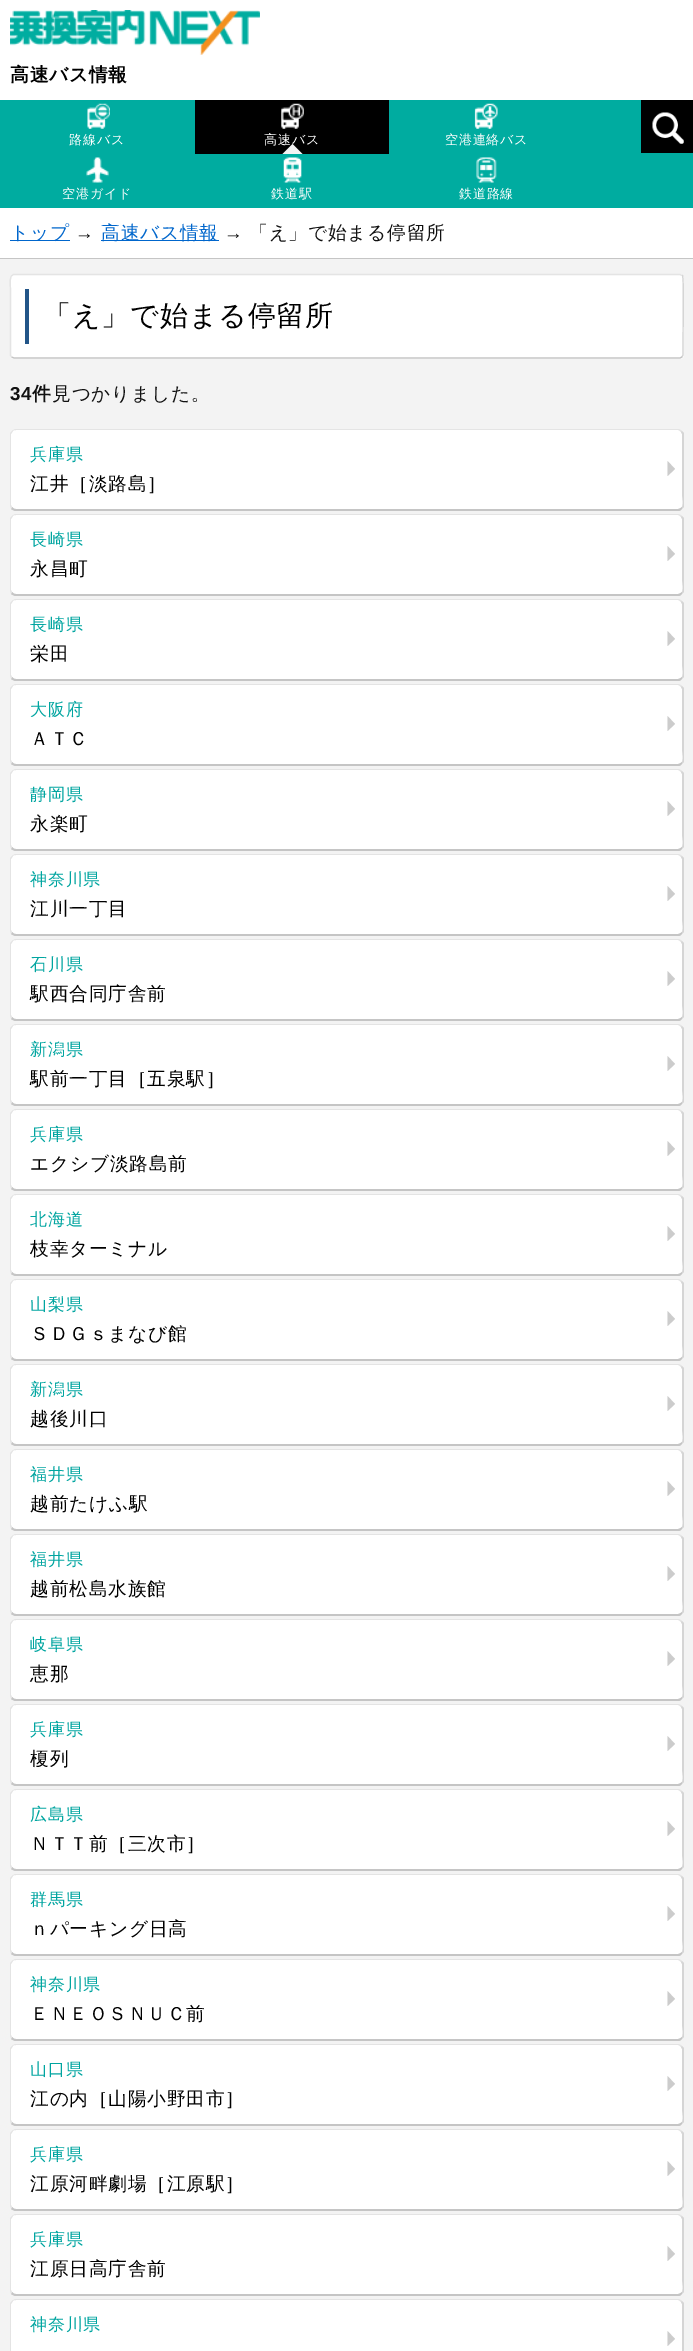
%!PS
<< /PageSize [693 2351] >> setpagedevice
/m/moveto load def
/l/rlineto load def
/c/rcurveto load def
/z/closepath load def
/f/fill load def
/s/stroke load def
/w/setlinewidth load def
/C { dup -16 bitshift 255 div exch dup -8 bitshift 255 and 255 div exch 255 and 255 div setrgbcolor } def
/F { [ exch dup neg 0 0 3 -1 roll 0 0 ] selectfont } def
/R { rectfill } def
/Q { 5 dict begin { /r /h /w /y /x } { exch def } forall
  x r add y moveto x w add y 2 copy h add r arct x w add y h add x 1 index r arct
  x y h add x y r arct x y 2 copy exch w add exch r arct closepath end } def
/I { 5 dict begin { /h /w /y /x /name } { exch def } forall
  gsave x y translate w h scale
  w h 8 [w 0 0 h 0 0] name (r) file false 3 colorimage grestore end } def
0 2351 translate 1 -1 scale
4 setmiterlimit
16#FFFFFF C
0 0 693 2351 R
(1.rgb) 10 10 250 45 I
/WenQuanYiZenHei-Bold 18.75 F
16#000000 C
10 81 m .75 0 (高速バス情報) ashow
16#00ACA0 C
0 100 693 108 R
16#000000 C
641 100 52 53 R
(2.rgb) 652 112 32 32 I
(3.rgb) 87 103 23 26 I
/WenQuanYiZenHei-Medium 13 F
16#FFFFFF C
69 144 m .75 0 (路線バス) ashow
16#000000 C
195 100 194 54 R
(4.rgb) 281 103 23 26 I
16#FFFFFF C
264 144 m .75 0 (高速バス) ashow
16#F3F3F3 C
302.5 154 m -20 0 l 10 -10 l z f
(5.rgb) 474 103 24 26 I
16#FFFFFF C
445 144 m .75 0 (空港連絡バス) ashow
(6.rgb) 86 157 23 26 I
62 198 m .75 0 (空港ガイド) ashow
(7.rgb) 283 157 19 26 I
271 198 m .75 0 (鉄道駅) ashow
(8.rgb) 476 157 21 26 I
459 198 m .75 0 (鉄道路線) ashow
16#0066CC C
10 240 60 1 R
/WenQuanYiZenHei-Medium 18.75 F
10 239 m .75 0 (トップ) ashow
/LiberationSans-Regular 18.75 F
16#111111 C
75 239 m .75 0 (→) ashow
16#0066CC C
101 240 118 1 R
/WenQuanYiZenHei-Medium 18.75 F
101 239 m .75 0 (高速バス情報) ashow
/LiberationSans-Regular 18.75 F
16#111111 C
224 239 m .75 0 (→) ashow
/WenQuanYiZenHei-Medium 18.75 F
249 239 m .75 0 (「え」で始まる停留所) ashow
16#F3F3F3 C
0 259 693 2092 R
16#C5C5C5 C
0 258 693 1 R
16#FFFFFF C
10 274 674 85 4 Q f
16#D5D5D5 C
1.2 w
682 275.5 m .5 0 l 1.5 2 .5 59 .5 66.5 c 0 13 l -1 2 l s
16#C5C5C5 C
682 357 m -2 1 l -666 0 l -2.5 -1 l s
16#E4E4E4 C
11.5 357 m -1 -1.5 l 0 -65 l 0 -6 -2 -16 3.5 -16 c 666 0 l 2 1 l s
16#225588 C
25 289 4 55 R
/WenQuanYiZenHei-Medium 28.1 F
16#000000 C
43 325 m .75 0 (「え」で始まる停留所) ashow
/LiberationSans-Bold 18.75 F
16#111111 C
10 400 m .75 0 (34) ashow
/WenQuanYiZenHei-Bold 18.75 F
32 400 m .75 0 (件) ashow
/WenQuanYiZenHei-Medium 18.75 F
52 400 m .75 0 (見つかりました。) ashow
16#FFFFFF C
16 430 m 662 0 l 2 0 4 2 4 5 c 0 70 l 0 2 -2 4 -4 4 c -662 0 l -3 0 -5 -2 -5 -4 c 0 -70 l 0 -3 2 -5 5 -5 c z f
16#E4E4E4 C
16 429 m -1 0 -3 1 -4 2 c 1 0 l 0 -1 2 -1 3 -1 c 662 0 l 1 0 2 1 3 2 c 1 -1 l -1 -1 -3 -2 -4 -2 c z f
16#D5D5D5 C
682 431 m 2 2 l 0 74 l -2 2 l 0 -2 l 2 -4 0 -9 0 -14 c 0 -59 l -1 -2 l z f
16#C5C5C5 C
682 509 m -1 1 -2 2 -4 2 c -662 0 l -2 0 -3 -1 -5 -2 c 1 -2 l 1 1 2 2 4 2 c 662 0 l 1 0 3 -1 4 -2 c z f
16#E4E4E4 C
10 435 m 0 70 l 0 1 1 3 1 4 c 1 -2 l -1 -2 l 0 -71 l 2 -3 l -1 0 l -1 1 -2 2 -2 4 c z f
/WenQuanYiZenHei-Medium 17 F
16#00A5A0 C
30 460 m .75 0 (兵庫県) ashow
16#CCCCCC C
667.5 476 m 0 -15 l 7.5 8 l z f
/WenQuanYiZenHei-Medium 18.75 F
16#000000 C
30 490 m .75 0 (江井［淡路島］) ashow
16#FFFFFF C
16 515 m 662 0 l 2 0 4 2 4 5 c 0 70 l 0 2 -2 4 -4 4 c -662 0 l -3 0 -5 -2 -5 -4 c 0 -70 l 0 -3 2 -5 5 -5 c z f
16#E4E4E4 C
16 514 m -1 0 -3 1 -4 2 c 1 0 l 0 -1 2 -1 3 -1 c 662 0 l 1 0 2 1 3 2 c 1 -1 l -1 -1 -3 -2 -4 -2 c z f
16#D5D5D5 C
682 516 m 2 2 l 0 74 l -2 2 l 0 -2 l 2 -4 0 -9 0 -14 c 0 -59 l -1 -2 l z f
16#C5C5C5 C
682 594 m -1 1 -2 2 -4 2 c -662 0 l -2 0 -3 -1 -5 -2 c 1 -2 l 1 1 2 2 4 2 c 662 0 l 1 0 3 -1 4 -2 c z f
16#E4E4E4 C
10 520 m 0 70 l 0 1 1 3 1 4 c 1 -2 l -1 -2 l 0 -71 l 2 -3 l -1 0 l -1 1 -2 2 -2 4 c z f
/WenQuanYiZenHei-Medium 17 F
16#00A5A0 C
30 545 m .75 0 (長崎県) ashow
16#CCCCCC C
667.5 561 m 0 -15 l 7.5 8 l z f
/WenQuanYiZenHei-Medium 18.75 F
16#000000 C
30 575 m .75 0 (永昌町) ashow
16#FFFFFF C
16 600 m 662 0 l 2 0 4 2 4 5 c 0 70 l 0 2 -2 4 -4 4 c -662 0 l -3 0 -5 -2 -5 -4 c 0 -70 l 0 -3 2 -5 5 -5 c z f
16#E4E4E4 C
16 599 m -1 0 -3 1 -4 2 c 1 0 l 0 -1 2 -1 3 -1 c 662 0 l 1 0 2 1 3 2 c 1 -1 l -1 -1 -3 -2 -4 -2 c z f
16#D5D5D5 C
682 601 m 2 2 l 0 74 l -2 2 l 0 -2 l 2 -4 0 -9 0 -14 c 0 -59 l -1 -2 l z f
16#C5C5C5 C
682 679 m -1 1 -2 2 -4 2 c -662 0 l -2 0 -3 -1 -5 -2 c 1 -2 l 1 1 2 2 4 2 c 662 0 l 1 0 3 -1 4 -2 c z f
16#E4E4E4 C
10 605 m 0 70 l 0 1 1 3 1 4 c 1 -2 l -1 -2 l 0 -71 l 2 -3 l -1 0 l -1 1 -2 2 -2 4 c z f
/WenQuanYiZenHei-Medium 17 F
16#00A5A0 C
30 630 m .75 0 (長崎県) ashow
16#CCCCCC C
667.5 646 m 0 -15 l 7.5 8 l z f
/WenQuanYiZenHei-Medium 18.75 F
16#000000 C
30 660 m .75 0 (栄田) ashow
16#FFFFFF C
16 685 m 662 0 l 2 0 4 2 4 5 c 0 70 l 0 2 -2 4 -4 4 c -662 0 l -3 0 -5 -2 -5 -4 c 0 -70 l 0 -3 2 -5 5 -5 c z f
16#E4E4E4 C
16 684 m -1 0 -3 1 -4 2 c 1 0 l 0 -1 2 -1 3 -1 c 662 0 l 1 0 2 1 3 2 c 1 -1 l -1 -1 -3 -2 -4 -2 c z f
16#D5D5D5 C
682 686 m 2 2 l 0 74 l -2 2 l 0 -2 l 2 -4 0 -9 0 -14 c 0 -59 l -1 -2 l z f
16#C5C5C5 C
682 764 m -1 1 -2 2 -4 2 c -662 0 l -2 0 -3 -1 -5 -2 c 1 -2 l 1 1 2 2 4 2 c 662 0 l 1 0 3 -1 4 -2 c z f
16#E4E4E4 C
10 690 m 0 70 l 0 1 1 3 1 4 c 1 -2 l -1 -2 l 0 -71 l 2 -3 l -1 0 l -1 1 -2 2 -2 4 c z f
/WenQuanYiZenHei-Medium 17 F
16#00A5A0 C
30 715 m .75 0 (大阪府) ashow
16#CCCCCC C
667.5 731 m 0 -15 l 7.5 8 l z f
/WenQuanYiZenHei-Medium 18.75 F
16#000000 C
30 745 m .75 0 (ＡＴＣ) ashow
16#FFFFFF C
16 770 m 662 0 l 2 0 4 2 4 5 c 0 70 l 0 2 -2 4 -4 4 c -662 0 l -3 0 -5 -2 -5 -4 c 0 -70 l 0 -3 2 -5 5 -5 c z f
16#E4E4E4 C
16 769 m -1 0 -3 1 -4 2 c 1 0 l 0 -1 2 -1 3 -1 c 662 0 l 1 0 2 1 3 2 c 1 -1 l -1 -1 -3 -2 -4 -2 c z f
16#D5D5D5 C
682 771 m 2 2 l 0 74 l -2 2 l 0 -2 l 2 -4 0 -9 0 -14 c 0 -59 l -1 -2 l z f
16#C5C5C5 C
682 849 m -1 1 -2 2 -4 2 c -662 0 l -2 0 -3 -1 -5 -2 c 1 -2 l 1 1 2 2 4 2 c 662 0 l 1 0 3 -1 4 -2 c z f
16#E4E4E4 C
10 775 m 0 70 l 0 1 1 3 1 4 c 1 -2 l -1 -2 l 0 -71 l 2 -3 l -1 0 l -1 1 -2 2 -2 4 c z f
/WenQuanYiZenHei-Medium 17 F
16#00A5A0 C
30 800 m .75 0 (静岡県) ashow
16#CCCCCC C
667.5 816 m 0 -15 l 7.5 8 l z f
/WenQuanYiZenHei-Medium 18.75 F
16#000000 C
30 830 m .75 0 (永楽町) ashow
16#FFFFFF C
16 855 m 662 0 l 2 0 4 2 4 5 c 0 70 l 0 2 -2 4 -4 4 c -662 0 l -3 0 -5 -2 -5 -4 c 0 -70 l 0 -3 2 -5 5 -5 c z f
16#E4E4E4 C
16 854 m -1 0 -3 1 -4 2 c 1 0 l 0 -1 2 -1 3 -1 c 662 0 l 1 0 2 1 3 2 c 1 -1 l -1 -1 -3 -2 -4 -2 c z f
16#D5D5D5 C
682 856 m 2 2 l 0 74 l -2 2 l 0 -2 l 2 -4 0 -9 0 -14 c 0 -59 l -1 -2 l z f
16#C5C5C5 C
682 934 m -1 1 -2 2 -4 2 c -662 0 l -2 0 -3 -1 -5 -2 c 1 -2 l 1 1 2 2 4 2 c 662 0 l 1 0 3 -1 4 -2 c z f
16#E4E4E4 C
10 860 m 0 70 l 0 1 1 3 1 4 c 1 -2 l -1 -2 l 0 -71 l 2 -3 l -1 0 l -1 1 -2 2 -2 4 c z f
/WenQuanYiZenHei-Medium 17 F
16#00A5A0 C
30 885 m .75 0 (神奈川県) ashow
16#CCCCCC C
667.5 901 m 0 -15 l 7.5 8 l z f
/WenQuanYiZenHei-Medium 18.75 F
16#000000 C
30 915 m .75 0 (江川一丁目) ashow
16#FFFFFF C
16 940 m 662 0 l 2 0 4 2 4 5 c 0 70 l 0 2 -2 4 -4 4 c -662 0 l -3 0 -5 -2 -5 -4 c 0 -70 l 0 -3 2 -5 5 -5 c z f
16#E4E4E4 C
16 939 m -1 0 -3 1 -4 2 c 1 0 l 0 -1 2 -1 3 -1 c 662 0 l 1 0 2 1 3 2 c 1 -1 l -1 -1 -3 -2 -4 -2 c z f
16#D5D5D5 C
682 941 m 2 2 l 0 74 l -2 2 l 0 -2 l 2 -4 0 -9 0 -14 c 0 -59 l -1 -2 l z f
16#C5C5C5 C
682 1019 m -1 1 -2 2 -4 2 c -662 0 l -2 0 -3 -1 -5 -2 c 1 -2 l 1 1 2 2 4 2 c 662 0 l 1 0 3 -1 4 -2 c z f
16#E4E4E4 C
10 945 m 0 70 l 0 1 1 3 1 4 c 1 -2 l -1 -2 l 0 -71 l 2 -3 l -1 0 l -1 1 -2 2 -2 4 c z f
/WenQuanYiZenHei-Medium 17 F
16#00A5A0 C
30 970 m .75 0 (石川県) ashow
16#CCCCCC C
667.5 986 m 0 -15 l 7.5 8 l z f
/WenQuanYiZenHei-Medium 18.75 F
16#000000 C
30 1000 m .75 0 (駅西合同庁舎前) ashow
16#FFFFFF C
16 1025 m 662 0 l 2 0 4 2 4 5 c 0 70 l 0 2 -2 4 -4 4 c -662 0 l -3 0 -5 -2 -5 -4 c 0 -70 l 0 -3 2 -5 5 -5 c z f
16#E4E4E4 C
16 1024 m -1 0 -3 1 -4 2 c 1 0 l 0 -1 2 -1 3 -1 c 662 0 l 1 0 2 1 3 2 c 1 -1 l -1 -1 -3 -2 -4 -2 c z f
16#D5D5D5 C
682 1026 m 2 2 l 0 74 l -2 2 l 0 -2 l 2 -4 0 -9 0 -14 c 0 -59 l -1 -2 l z f
16#C5C5C5 C
682 1104 m -1 1 -2 2 -4 2 c -662 0 l -2 0 -3 -1 -5 -2 c 1 -2 l 1 1 2 2 4 2 c 662 0 l 1 0 3 -1 4 -2 c z f
16#E4E4E4 C
10 1030 m 0 70 l 0 1 1 3 1 4 c 1 -2 l -1 -2 l 0 -71 l 2 -3 l -1 0 l -1 1 -2 2 -2 4 c z f
/WenQuanYiZenHei-Medium 17 F
16#00A5A0 C
30 1055 m .75 0 (新潟県) ashow
16#CCCCCC C
667.5 1071 m 0 -15 l 7.5 8 l z f
/WenQuanYiZenHei-Medium 18.75 F
16#000000 C
30 1085 m .75 0 (駅前一丁目［五泉駅］) ashow
16#FFFFFF C
16 1110 m 662 0 l 2 0 4 2 4 5 c 0 70 l 0 2 -2 4 -4 4 c -662 0 l -3 0 -5 -2 -5 -4 c 0 -70 l 0 -3 2 -5 5 -5 c z f
16#E4E4E4 C
16 1109 m -1 0 -3 1 -4 2 c 1 0 l 0 -1 2 -1 3 -1 c 662 0 l 1 0 2 1 3 2 c 1 -1 l -1 -1 -3 -2 -4 -2 c z f
16#D5D5D5 C
682 1111 m 2 2 l 0 74 l -2 2 l 0 -2 l 2 -4 0 -9 0 -14 c 0 -59 l -1 -2 l z f
16#C5C5C5 C
682 1189 m -1 1 -2 2 -4 2 c -662 0 l -2 0 -3 -1 -5 -2 c 1 -2 l 1 1 2 2 4 2 c 662 0 l 1 0 3 -1 4 -2 c z f
16#E4E4E4 C
10 1115 m 0 70 l 0 1 1 3 1 4 c 1 -2 l -1 -2 l 0 -71 l 2 -3 l -1 0 l -1 1 -2 2 -2 4 c z f
/WenQuanYiZenHei-Medium 17 F
16#00A5A0 C
30 1140 m .75 0 (兵庫県) ashow
16#CCCCCC C
667.5 1156 m 0 -15 l 7.5 8 l z f
/WenQuanYiZenHei-Medium 18.75 F
16#000000 C
30 1170 m .75 0 (エクシブ淡路島前) ashow
16#FFFFFF C
16 1195 m 662 0 l 2 0 4 2 4 5 c 0 70 l 0 2 -2 4 -4 4 c -662 0 l -3 0 -5 -2 -5 -4 c 0 -70 l 0 -3 2 -5 5 -5 c z f
16#E4E4E4 C
16 1194 m -1 0 -3 1 -4 2 c 1 0 l 0 -1 2 -1 3 -1 c 662 0 l 1 0 2 1 3 2 c 1 -1 l -1 -1 -3 -2 -4 -2 c z f
16#D5D5D5 C
682 1196 m 2 2 l 0 74 l -2 2 l 0 -2 l 2 -4 0 -9 0 -14 c 0 -59 l -1 -2 l z f
16#C5C5C5 C
682 1274 m -1 1 -2 2 -4 2 c -662 0 l -2 0 -3 -1 -5 -2 c 1 -2 l 1 1 2 2 4 2 c 662 0 l 1 0 3 -1 4 -2 c z f
16#E4E4E4 C
10 1200 m 0 70 l 0 1 1 3 1 4 c 1 -2 l -1 -2 l 0 -71 l 2 -3 l -1 0 l -1 1 -2 2 -2 4 c z f
/WenQuanYiZenHei-Medium 17 F
16#00A5A0 C
30 1225 m .75 0 (北海道) ashow
16#CCCCCC C
667.5 1241 m 0 -15 l 7.5 8 l z f
/WenQuanYiZenHei-Medium 18.75 F
16#000000 C
30 1255 m .75 0 (枝幸ターミナル) ashow
16#FFFFFF C
16 1280 m 662 0 l 2 0 4 2 4 5 c 0 70 l 0 2 -2 4 -4 4 c -662 0 l -3 0 -5 -2 -5 -4 c 0 -70 l 0 -3 2 -5 5 -5 c z f
16#E4E4E4 C
16 1279 m -1 0 -3 1 -4 2 c 1 0 l 0 -1 2 -1 3 -1 c 662 0 l 1 0 2 1 3 2 c 1 -1 l -1 -1 -3 -2 -4 -2 c z f
16#D5D5D5 C
682 1281 m 2 2 l 0 74 l -2 2 l 0 -2 l 2 -4 0 -9 0 -14 c 0 -59 l -1 -2 l z f
16#C5C5C5 C
682 1359 m -1 1 -2 2 -4 2 c -662 0 l -2 0 -3 -1 -5 -2 c 1 -2 l 1 1 2 2 4 2 c 662 0 l 1 0 3 -1 4 -2 c z f
16#E4E4E4 C
10 1285 m 0 70 l 0 1 1 3 1 4 c 1 -2 l -1 -2 l 0 -71 l 2 -3 l -1 0 l -1 1 -2 2 -2 4 c z f
/WenQuanYiZenHei-Medium 17 F
16#00A5A0 C
30 1310 m .75 0 (山梨県) ashow
16#CCCCCC C
667.5 1326 m 0 -15 l 7.5 8 l z f
/WenQuanYiZenHei-Medium 18.75 F
16#000000 C
30 1340 m .75 0 (ＳＤＧｓまなび館) ashow
16#FFFFFF C
16 1365 m 662 0 l 2 0 4 2 4 5 c 0 70 l 0 2 -2 4 -4 4 c -662 0 l -3 0 -5 -2 -5 -4 c 0 -70 l 0 -3 2 -5 5 -5 c z f
16#E4E4E4 C
16 1364 m -1 0 -3 1 -4 2 c 1 0 l 0 -1 2 -1 3 -1 c 662 0 l 1 0 2 1 3 2 c 1 -1 l -1 -1 -3 -2 -4 -2 c z f
16#D5D5D5 C
682 1366 m 2 2 l 0 74 l -2 2 l 0 -2 l 2 -4 0 -9 0 -14 c 0 -59 l -1 -2 l z f
16#C5C5C5 C
682 1444 m -1 1 -2 2 -4 2 c -662 0 l -2 0 -3 -1 -5 -2 c 1 -2 l 1 1 2 2 4 2 c 662 0 l 1 0 3 -1 4 -2 c z f
16#E4E4E4 C
10 1370 m 0 70 l 0 1 1 3 1 4 c 1 -2 l -1 -2 l 0 -71 l 2 -3 l -1 0 l -1 1 -2 2 -2 4 c z f
/WenQuanYiZenHei-Medium 17 F
16#00A5A0 C
30 1395 m .75 0 (新潟県) ashow
16#CCCCCC C
667.5 1411 m 0 -15 l 7.5 8 l z f
/WenQuanYiZenHei-Medium 18.75 F
16#000000 C
30 1425 m .75 0 (越後川口) ashow
16#FFFFFF C
16 1450 m 662 0 l 2 0 4 2 4 5 c 0 70 l 0 2 -2 4 -4 4 c -662 0 l -3 0 -5 -2 -5 -4 c 0 -70 l 0 -3 2 -5 5 -5 c z f
16#E4E4E4 C
16 1449 m -1 0 -3 1 -4 2 c 1 0 l 0 -1 2 -1 3 -1 c 662 0 l 1 0 2 1 3 2 c 1 -1 l -1 -1 -3 -2 -4 -2 c z f
16#D5D5D5 C
682 1451 m 2 2 l 0 74 l -2 2 l 0 -2 l 2 -4 0 -9 0 -14 c 0 -59 l -1 -2 l z f
16#C5C5C5 C
682 1529 m -1 1 -2 2 -4 2 c -662 0 l -2 0 -3 -1 -5 -2 c 1 -2 l 1 1 2 2 4 2 c 662 0 l 1 0 3 -1 4 -2 c z f
16#E4E4E4 C
10 1455 m 0 70 l 0 1 1 3 1 4 c 1 -2 l -1 -2 l 0 -71 l 2 -3 l -1 0 l -1 1 -2 2 -2 4 c z f
/WenQuanYiZenHei-Medium 17 F
16#00A5A0 C
30 1480 m .75 0 (福井県) ashow
16#CCCCCC C
667.5 1496 m 0 -15 l 7.5 8 l z f
/WenQuanYiZenHei-Medium 18.75 F
16#000000 C
30 1510 m .75 0 (越前たけふ駅) ashow
16#FFFFFF C
16 1535 m 662 0 l 2 0 4 2 4 5 c 0 70 l 0 2 -2 4 -4 4 c -662 0 l -3 0 -5 -2 -5 -4 c 0 -70 l 0 -3 2 -5 5 -5 c z f
16#E4E4E4 C
16 1534 m -1 0 -3 1 -4 2 c 1 0 l 0 -1 2 -1 3 -1 c 662 0 l 1 0 2 1 3 2 c 1 -1 l -1 -1 -3 -2 -4 -2 c z f
16#D5D5D5 C
682 1536 m 2 2 l 0 74 l -2 2 l 0 -2 l 2 -4 0 -9 0 -14 c 0 -59 l -1 -2 l z f
16#C5C5C5 C
682 1614 m -1 1 -2 2 -4 2 c -662 0 l -2 0 -3 -1 -5 -2 c 1 -2 l 1 1 2 2 4 2 c 662 0 l 1 0 3 -1 4 -2 c z f
16#E4E4E4 C
10 1540 m 0 70 l 0 1 1 3 1 4 c 1 -2 l -1 -2 l 0 -71 l 2 -3 l -1 0 l -1 1 -2 2 -2 4 c z f
/WenQuanYiZenHei-Medium 17 F
16#00A5A0 C
30 1565 m .75 0 (福井県) ashow
16#CCCCCC C
667.5 1581 m 0 -15 l 7.5 8 l z f
/WenQuanYiZenHei-Medium 18.75 F
16#000000 C
30 1595 m .75 0 (越前松島水族館) ashow
16#FFFFFF C
16 1620 m 662 0 l 2 0 4 2 4 5 c 0 70 l 0 2 -2 4 -4 4 c -662 0 l -3 0 -5 -2 -5 -4 c 0 -70 l 0 -3 2 -5 5 -5 c z f
16#E4E4E4 C
16 1619 m -1 0 -3 1 -4 2 c 1 0 l 0 -1 2 -1 3 -1 c 662 0 l 1 0 2 1 3 2 c 1 -1 l -1 -1 -3 -2 -4 -2 c z f
16#D5D5D5 C
682 1621 m 2 2 l 0 74 l -2 2 l 0 -2 l 2 -4 0 -9 0 -14 c 0 -59 l -1 -2 l z f
16#C5C5C5 C
682 1699 m -1 1 -2 2 -4 2 c -662 0 l -2 0 -3 -1 -5 -2 c 1 -2 l 1 1 2 2 4 2 c 662 0 l 1 0 3 -1 4 -2 c z f
16#E4E4E4 C
10 1625 m 0 70 l 0 1 1 3 1 4 c 1 -2 l -1 -2 l 0 -71 l 2 -3 l -1 0 l -1 1 -2 2 -2 4 c z f
/WenQuanYiZenHei-Medium 17 F
16#00A5A0 C
30 1650 m .75 0 (岐阜県) ashow
16#CCCCCC C
667.5 1666 m 0 -15 l 7.5 8 l z f
/WenQuanYiZenHei-Medium 18.75 F
16#000000 C
30 1680 m .75 0 (恵那) ashow
16#FFFFFF C
16 1705 m 662 0 l 2 0 4 2 4 5 c 0 70 l 0 2 -2 4 -4 4 c -662 0 l -3 0 -5 -2 -5 -4 c 0 -70 l 0 -3 2 -5 5 -5 c z f
16#E4E4E4 C
16 1704 m -1 0 -3 1 -4 2 c 1 0 l 0 -1 2 -1 3 -1 c 662 0 l 1 0 2 1 3 2 c 1 -1 l -1 -1 -3 -2 -4 -2 c z f
16#D5D5D5 C
682 1706 m 2 2 l 0 74 l -2 2 l 0 -2 l 2 -4 0 -9 0 -14 c 0 -59 l -1 -2 l z f
16#C5C5C5 C
682 1784 m -1 1 -2 2 -4 2 c -662 0 l -2 0 -3 -1 -5 -2 c 1 -2 l 1 1 2 2 4 2 c 662 0 l 1 0 3 -1 4 -2 c z f
16#E4E4E4 C
10 1710 m 0 70 l 0 1 1 3 1 4 c 1 -2 l -1 -2 l 0 -71 l 2 -3 l -1 0 l -1 1 -2 2 -2 4 c z f
/WenQuanYiZenHei-Medium 17 F
16#00A5A0 C
30 1735 m .75 0 (兵庫県) ashow
16#CCCCCC C
667.5 1751 m 0 -15 l 7.5 8 l z f
/WenQuanYiZenHei-Medium 18.75 F
16#000000 C
30 1765 m .75 0 (榎列) ashow
16#FFFFFF C
16 1790 m 662 0 l 2 0 4 2 4 5 c 0 70 l 0 2 -2 4 -4 4 c -662 0 l -3 0 -5 -2 -5 -4 c 0 -70 l 0 -3 2 -5 5 -5 c z f
16#E4E4E4 C
16 1789 m -1 0 -3 1 -4 2 c 1 0 l 0 -1 2 -1 3 -1 c 662 0 l 1 0 2 1 3 2 c 1 -1 l -1 -1 -3 -2 -4 -2 c z f
16#D5D5D5 C
682 1791 m 2 2 l 0 74 l -2 2 l 0 -2 l 2 -4 0 -9 0 -14 c 0 -59 l -1 -2 l z f
16#C5C5C5 C
682 1869 m -1 1 -2 2 -4 2 c -662 0 l -2 0 -3 -1 -5 -2 c 1 -2 l 1 1 2 2 4 2 c 662 0 l 1 0 3 -1 4 -2 c z f
16#E4E4E4 C
10 1795 m 0 70 l 0 1 1 3 1 4 c 1 -2 l -1 -2 l 0 -71 l 2 -3 l -1 0 l -1 1 -2 2 -2 4 c z f
/WenQuanYiZenHei-Medium 17 F
16#00A5A0 C
30 1820 m .75 0 (広島県) ashow
16#CCCCCC C
667.5 1836 m 0 -15 l 7.5 8 l z f
/WenQuanYiZenHei-Medium 18.75 F
16#000000 C
30 1850 m .75 0 (ＮＴＴ前［三次市］) ashow
16#FFFFFF C
16 1875 m 662 0 l 2 0 4 2 4 5 c 0 70 l 0 2 -2 4 -4 4 c -662 0 l -3 0 -5 -2 -5 -4 c 0 -70 l 0 -3 2 -5 5 -5 c z f
16#E4E4E4 C
16 1874 m -1 0 -3 1 -4 2 c 1 0 l 0 -1 2 -1 3 -1 c 662 0 l 1 0 2 1 3 2 c 1 -1 l -1 -1 -3 -2 -4 -2 c z f
16#D5D5D5 C
682 1876 m 2 2 l 0 74 l -2 2 l 0 -2 l 2 -4 0 -9 0 -14 c 0 -59 l -1 -2 l z f
16#C5C5C5 C
682 1954 m -1 1 -2 2 -4 2 c -662 0 l -2 0 -3 -1 -5 -2 c 1 -2 l 1 1 2 2 4 2 c 662 0 l 1 0 3 -1 4 -2 c z f
16#E4E4E4 C
10 1880 m 0 70 l 0 1 1 3 1 4 c 1 -2 l -1 -2 l 0 -71 l 2 -3 l -1 0 l -1 1 -2 2 -2 4 c z f
/WenQuanYiZenHei-Medium 17 F
16#00A5A0 C
30 1905 m .75 0 (群馬県) ashow
16#CCCCCC C
667.5 1921 m 0 -15 l 7.5 8 l z f
/WenQuanYiZenHei-Medium 18.75 F
16#000000 C
30 1935 m .75 0 (ｎパーキング日高) ashow
16#FFFFFF C
16 1960 m 662 0 l 2 0 4 2 4 5 c 0 70 l 0 2 -2 4 -4 4 c -662 0 l -3 0 -5 -2 -5 -4 c 0 -70 l 0 -3 2 -5 5 -5 c z f
16#E4E4E4 C
16 1959 m -1 0 -3 1 -4 2 c 1 0 l 0 -1 2 -1 3 -1 c 662 0 l 1 0 2 1 3 2 c 1 -1 l -1 -1 -3 -2 -4 -2 c z f
16#D5D5D5 C
682 1961 m 2 2 l 0 74 l -2 2 l 0 -2 l 2 -4 0 -9 0 -14 c 0 -59 l -1 -2 l z f
16#C5C5C5 C
682 2039 m -1 1 -2 2 -4 2 c -662 0 l -2 0 -3 -1 -5 -2 c 1 -2 l 1 1 2 2 4 2 c 662 0 l 1 0 3 -1 4 -2 c z f
16#E4E4E4 C
10 1965 m 0 70 l 0 1 1 3 1 4 c 1 -2 l -1 -2 l 0 -71 l 2 -3 l -1 0 l -1 1 -2 2 -2 4 c z f
/WenQuanYiZenHei-Medium 17 F
16#00A5A0 C
30 1990 m .75 0 (神奈川県) ashow
16#CCCCCC C
667.5 2006 m 0 -15 l 7.5 8 l z f
/WenQuanYiZenHei-Medium 18.75 F
16#000000 C
30 2020 m .75 0 (ＥＮＥＯＳＮＵＣ前) ashow
16#FFFFFF C
16 2045 m 662 0 l 2 0 4 2 4 5 c 0 70 l 0 2 -2 4 -4 4 c -662 0 l -3 0 -5 -2 -5 -4 c 0 -70 l 0 -3 2 -5 5 -5 c z f
16#E4E4E4 C
16 2044 m -1 0 -3 1 -4 2 c 1 0 l 0 -1 2 -1 3 -1 c 662 0 l 1 0 2 1 3 2 c 1 -1 l -1 -1 -3 -2 -4 -2 c z f
16#D5D5D5 C
682 2046 m 2 2 l 0 74 l -2 2 l 0 -2 l 2 -4 0 -9 0 -14 c 0 -59 l -1 -2 l z f
16#C5C5C5 C
682 2124 m -1 1 -2 2 -4 2 c -662 0 l -2 0 -3 -1 -5 -2 c 1 -2 l 1 1 2 2 4 2 c 662 0 l 1 0 3 -1 4 -2 c z f
16#E4E4E4 C
10 2050 m 0 70 l 0 1 1 3 1 4 c 1 -2 l -1 -2 l 0 -71 l 2 -3 l -1 0 l -1 1 -2 2 -2 4 c z f
/WenQuanYiZenHei-Medium 17 F
16#00A5A0 C
30 2075 m .75 0 (山口県) ashow
16#CCCCCC C
667.5 2091 m 0 -15 l 7.5 8 l z f
/WenQuanYiZenHei-Medium 18.75 F
16#000000 C
30 2105 m .75 0 (江の内［山陽小野田市］) ashow
16#FFFFFF C
16 2130 m 662 0 l 2 0 4 2 4 5 c 0 70 l 0 2 -2 4 -4 4 c -662 0 l -3 0 -5 -2 -5 -4 c 0 -70 l 0 -3 2 -5 5 -5 c z f
16#E4E4E4 C
16 2129 m -1 0 -3 1 -4 2 c 1 0 l 0 -1 2 -1 3 -1 c 662 0 l 1 0 2 1 3 2 c 1 -1 l -1 -1 -3 -2 -4 -2 c z f
16#D5D5D5 C
682 2131 m 2 2 l 0 74 l -2 2 l 0 -2 l 2 -4 0 -9 0 -14 c 0 -59 l -1 -2 l z f
16#C5C5C5 C
682 2209 m -1 1 -2 2 -4 2 c -662 0 l -2 0 -3 -1 -5 -2 c 1 -2 l 1 1 2 2 4 2 c 662 0 l 1 0 3 -1 4 -2 c z f
16#E4E4E4 C
10 2135 m 0 70 l 0 1 1 3 1 4 c 1 -2 l -1 -2 l 0 -71 l 2 -3 l -1 0 l -1 1 -2 2 -2 4 c z f
/WenQuanYiZenHei-Medium 17 F
16#00A5A0 C
30 2160 m .75 0 (兵庫県) ashow
16#CCCCCC C
667.5 2176 m 0 -15 l 7.5 8 l z f
/WenQuanYiZenHei-Medium 18.75 F
16#000000 C
30 2190 m .75 0 (江原河畔劇場［江原駅］) ashow
16#FFFFFF C
16 2215 m 662 0 l 2 0 4 2 4 5 c 0 70 l 0 2 -2 4 -4 4 c -662 0 l -3 0 -5 -2 -5 -4 c 0 -70 l 0 -3 2 -5 5 -5 c z f
16#E4E4E4 C
16 2214 m -1 0 -3 1 -4 2 c 1 0 l 0 -1 2 -1 3 -1 c 662 0 l 1 0 2 1 3 2 c 1 -1 l -1 -1 -3 -2 -4 -2 c z f
16#D5D5D5 C
682 2216 m 2 2 l 0 74 l -2 2 l 0 -2 l 2 -4 0 -9 0 -14 c 0 -59 l -1 -2 l z f
16#C5C5C5 C
682 2294 m -1 1 -2 2 -4 2 c -662 0 l -2 0 -3 -1 -5 -2 c 1 -2 l 1 1 2 2 4 2 c 662 0 l 1 0 3 -1 4 -2 c z f
16#E4E4E4 C
10 2220 m 0 70 l 0 1 1 3 1 4 c 1 -2 l -1 -2 l 0 -71 l 2 -3 l -1 0 l -1 1 -2 2 -2 4 c z f
/WenQuanYiZenHei-Medium 17 F
16#00A5A0 C
30 2245 m .75 0 (兵庫県) ashow
16#CCCCCC C
667.5 2261 m 0 -15 l 7.5 8 l z f
/WenQuanYiZenHei-Medium 18.75 F
16#000000 C
30 2275 m .75 0 (江原日高庁舎前) ashow
16#FFFFFF C
16 2300 m 662 0 l 2 0 4 2 4 5 c 0 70 l 0 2 -2 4 -4 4 c -662 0 l -3 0 -5 -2 -5 -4 c 0 -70 l 0 -3 2 -5 5 -5 c z f
16#E4E4E4 C
16 2299 m -1 0 -3 1 -4 2 c 1 0 l 0 -1 2 -1 3 -1 c 662 0 l 1 0 2 1 3 2 c 1 -1 l -1 -1 -3 -2 -4 -2 c z f
16#D5D5D5 C
682 2301 m 2 2 l 0 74 l -2 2 l 0 -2 l 2 -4 0 -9 0 -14 c 0 -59 l -1 -2 l z f
16#E4E4E4 C
10 2305 m 0 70 l 0 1 1 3 1 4 c 1 -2 l -1 -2 l 0 -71 l 2 -3 l -1 0 l -1 1 -2 2 -2 4 c z f
/WenQuanYiZenHei-Medium 17 F
16#00A5A0 C
30 2330 m .75 0 (神奈川県) ashow
16#CCCCCC C
667.5 2346 m 0 -15 l 7.5 8 l z f
showpage
